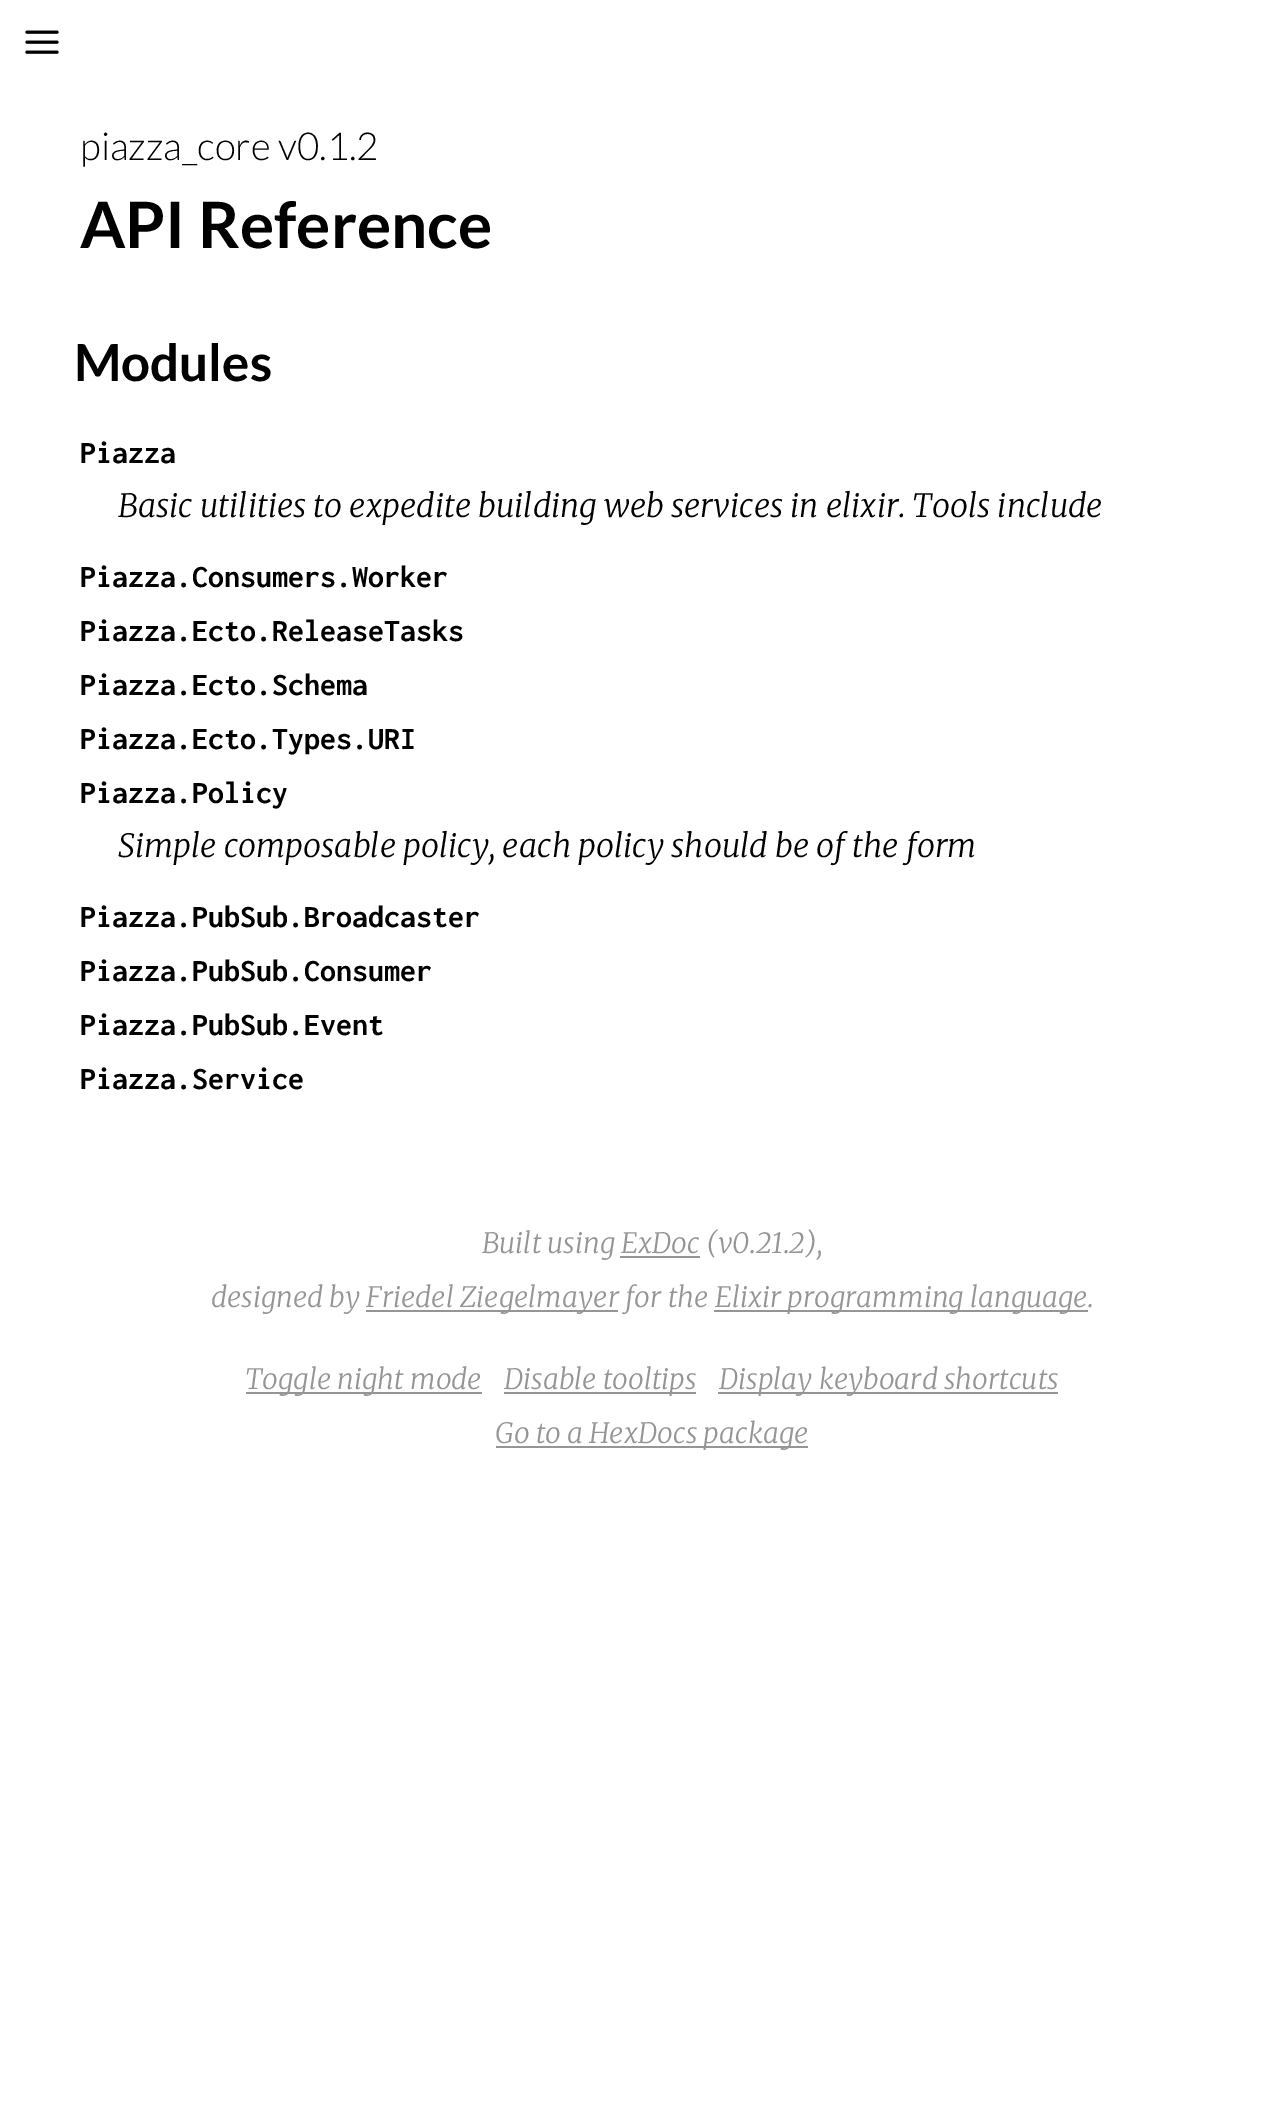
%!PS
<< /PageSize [1264 2104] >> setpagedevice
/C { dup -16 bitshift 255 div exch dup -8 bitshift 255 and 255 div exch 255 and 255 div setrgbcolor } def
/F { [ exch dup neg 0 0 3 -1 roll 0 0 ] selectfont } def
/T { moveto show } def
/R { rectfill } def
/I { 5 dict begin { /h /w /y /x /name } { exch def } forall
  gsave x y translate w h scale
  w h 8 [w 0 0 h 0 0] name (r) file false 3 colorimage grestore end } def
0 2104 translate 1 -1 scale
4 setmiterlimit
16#FFFFFF C
0 0 1264 2104 R
(1.rgb) 25 30 34 24 I
/Lato-Light 38.5 F
16#000000 C
(piazza_core v0.1.2) 80 160 T
/Lato-Bold 64 F
(API Reference) 80 248 T
/Lato-Bold 51 F
(Modules) 74 381 T
/Inconsolata-Bold 32 F
(Piazza) 80 463 T
/Merriweather-LightItalic 32 F
(Basic utilities to expedite building web services in elixir. Tools include) 118 517 T
/Inconsolata-Bold 32 F
(Piazza.Consumers.Worker) 80 587 T
(Piazza.Ecto.ReleaseTasks) 80 641 T
(Piazza.Ecto.Schema) 80 695 T
(Piazza.Ecto.Types.URI) 80 749 T
(Piazza.Policy) 80 803 T
/Merriweather-LightItalic 32 F
(Simple composable policy, each policy should be of the form) 118 857 T
/Inconsolata-Bold 32 F
(Piazza.PubSub.Broadcaster) 80 927 T
(Piazza.PubSub.Consumer) 80 981 T
(Piazza.PubSub.Event) 80 1035 T
(Piazza.Service) 80 1089 T
/Merriweather-LightItalic 28 F
16#959595 C
(Built using ExDoc \(v0.21.2\),) 482 1253 T
620 1256 80 2 R
(designed by) 211 1307 T
366 1310 252 2 R
(Friedel Ziegelmayer for the) 366 1307 T
714 1310 374 2 R
(Elixir programming language.) 715 1307 T
246 1392 236 2 R
(Toggle night mode) 245 1389 T
504 1392 192 2 R
(Disable tooltips) 504 1389 T
718 1392 340 2 R
(Display keyboard shortcuts) 719 1389 T
496 1446 312 2 R
(Go to a HexDocs package) 495 1443 T
showpage
